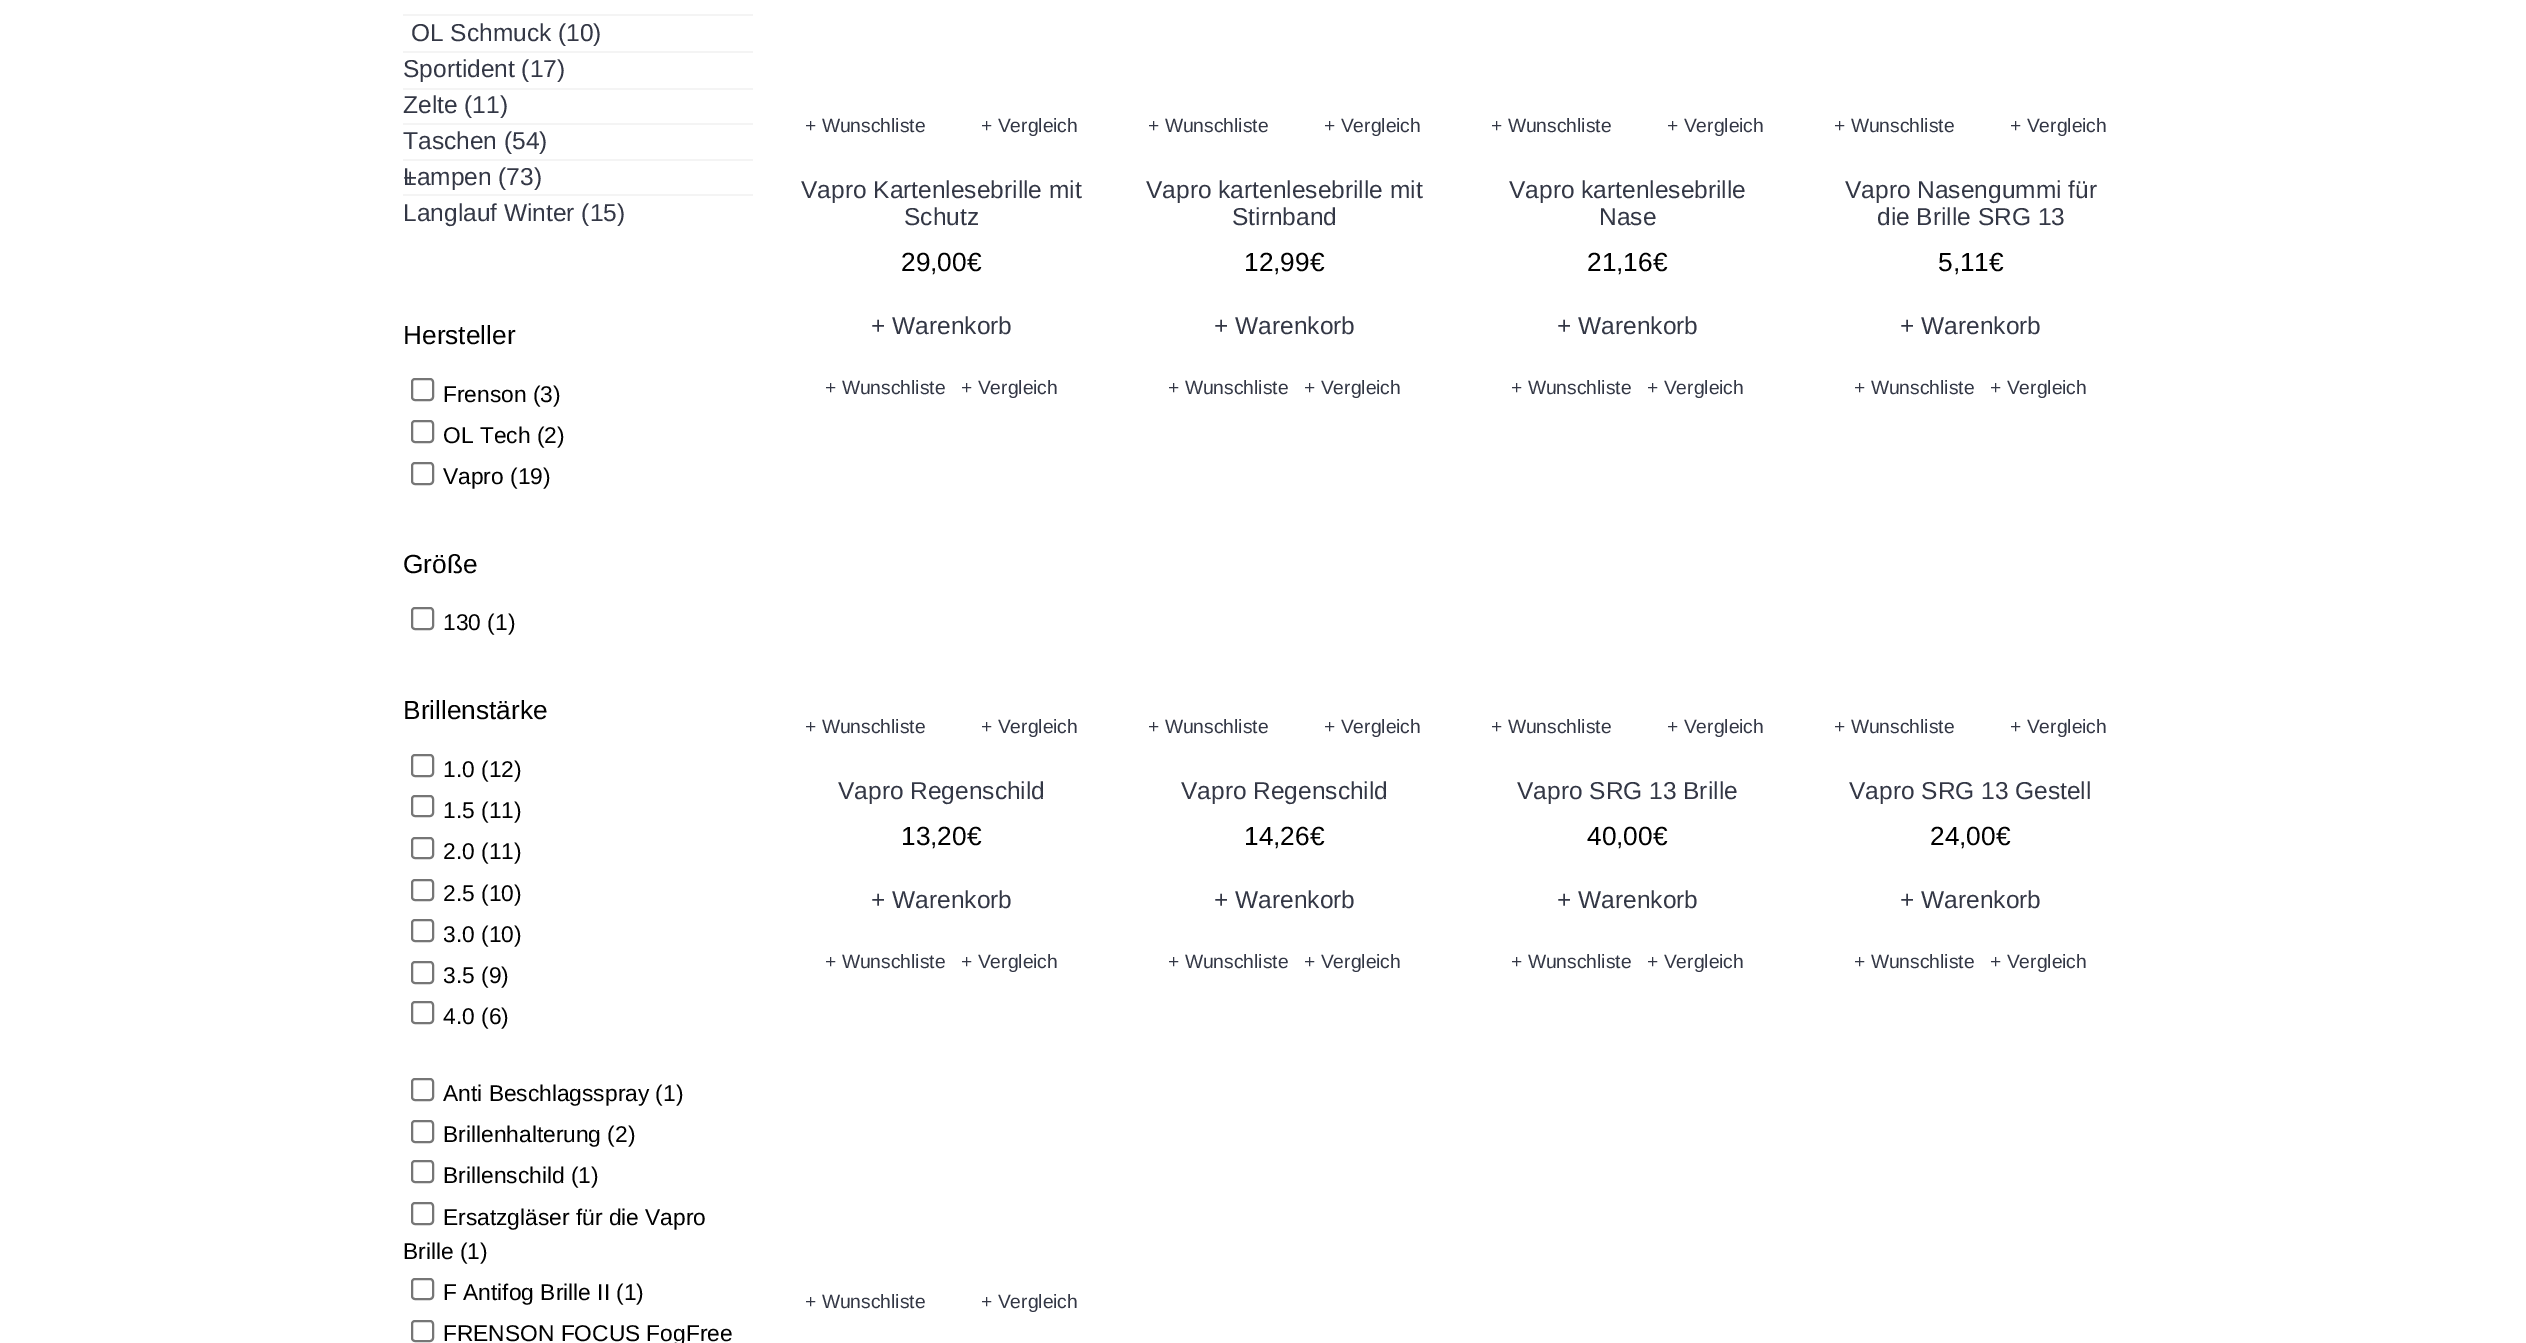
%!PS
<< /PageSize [2526 1343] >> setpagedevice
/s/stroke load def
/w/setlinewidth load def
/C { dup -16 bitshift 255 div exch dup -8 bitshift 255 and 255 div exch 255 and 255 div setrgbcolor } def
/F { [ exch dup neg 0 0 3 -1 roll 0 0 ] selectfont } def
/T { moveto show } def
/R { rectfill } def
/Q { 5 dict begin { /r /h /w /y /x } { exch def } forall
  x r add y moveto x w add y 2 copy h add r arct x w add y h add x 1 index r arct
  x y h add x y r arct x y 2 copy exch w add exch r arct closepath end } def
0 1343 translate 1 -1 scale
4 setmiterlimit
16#FFFFFF C
0 0 2526 1343 R
16#F4F4F4 C
403 14 350 2 R
403 51 350 2 R
/LiberationSans-Regular 24.5 F
16#333745 C
(OL Schmuck \(10\)) 411 41 T
16#F4F4F4 C
403 88 350 2 R
16#333745 C
(Sportident \(17\)) 403 77 T
16#F4F4F4 C
403 123 350 2 R
16#333745 C
(Zelte \(11\)) 403 113 T
16#F4F4F4 C
403 159 350 2 R
16#333745 C
(Taschen \(54\)) 403 149 T
16#F4F4F4 C
403 194 350 2 R
16#333745 C
(Lampen \(73\)) 403 185 T
(+) 403 186 T
(Langlauf Winter \(15\)) 403 221 T
/LiberationSans-Regular 26.25 F
16#000000 C
(Hersteller) 403 344 T
16#767676 C
2 w
412 379 21 21 3 Q s
/LiberationSans-Regular 22.75 F
16#000000 C
(Frenson \(3\)) 443 402 T
16#767676 C
412 421 21 21 3 Q s
16#000000 C
(OL Tech \(2\)) 443 443 T
16#767676 C
412 463 21 21 3 Q s
16#000000 C
(Vapro \(19\)) 443 484 T
/LiberationSans-Regular 26.25 F
(Größe) 403 573 T
16#767676 C
412 608 21 21 3 Q s
/LiberationSans-Regular 22.75 F
16#000000 C
(130 \(1\)) 443 630 T
/LiberationSans-Regular 26.25 F
(Brillenstärke) 403 719 T
16#767676 C
412 755 21 21 3 Q s
/LiberationSans-Regular 22.75 F
16#000000 C
(1.0 \(12\)) 443 777 T
16#767676 C
412 796 21 20 3 Q s
16#000000 C
(1.5 \(11\)) 443 818 T
16#767676 C
412 838 21 20 3 Q s
16#000000 C
(2.0 \(11\)) 443 859 T
16#767676 C
412 880 21 20 3 Q s
16#000000 C
(2.5 \(10\)) 443 901 T
16#767676 C
412 920 21 21 3 Q s
16#000000 C
(3.0 \(10\)) 443 942 T
16#767676 C
412 962 21 21 3 Q s
16#000000 C
(3.5 \(9\)) 443 983 T
16#767676 C
412 1002 21 21 3 Q s
16#000000 C
(4.0 \(6\)) 443 1024 T
16#767676 C
412 1079 21 21 3 Q s
16#000000 C
(Anti Beschlagsspray \(1\)) 443 1101 T
16#767676 C
412 1121 21 21 3 Q s
16#000000 C
(Brillenhalterung \(2\)) 443 1142 T
16#767676 C
412 1161 21 21 3 Q s
16#000000 C
(Brillenschild \(1\)) 443 1183 T
16#767676 C
412 1203 21 21 3 Q s
16#000000 C
(Ersatzgläser für die Vapro) 443 1225 T
(Brille \(1\)) 403 1259 T
16#767676 C
412 1279 21 20 3 Q s
16#000000 C
(F Antifog Brille II \(1\)) 443 1300 T
16#767676 C
412 1321 21 20 3 Q s
16#000000 C
(FRENSON FOCUS FogFree) 443 1341 T
/LiberationSans-Regular 19.25 F
16#333745 C
(+ Wunschliste) 805 132 T
(+ Vergleich) 981 132 T
/LiberationSans-Regular 24.5 F
(Vapro Kartenlesebrille mit) 801 198 T
(Schutz) 904 225 T
/LiberationSans-Regular 26.25 F
16#000000 C
(29,00€) 901 271 T
/LiberationSans-Regular 24.5 F
16#333745 C
(+ Warenkorb) 871 334 T
/LiberationSans-Regular 19.25 F
(+ Wunschliste) 825 394 T
(+ Vergleich) 961 394 T
(+ Wunschliste) 1148 132 T
(+ Vergleich) 1324 132 T
/LiberationSans-Regular 24.5 F
(Vapro kartenlesebrille mit) 1146 198 T
(Stirnband) 1232 225 T
/LiberationSans-Regular 26.25 F
16#000000 C
(12,99€) 1244 271 T
/LiberationSans-Regular 24.5 F
16#333745 C
(+ Warenkorb) 1214 334 T
/LiberationSans-Regular 19.25 F
(+ Wunschliste) 1168 394 T
(+ Vergleich) 1304 394 T
(+ Wunschliste) 1491 132 T
(+ Vergleich) 1667 132 T
/LiberationSans-Regular 24.5 F
(Vapro kartenlesebrille) 1509 198 T
(Nase) 1599 225 T
/LiberationSans-Regular 26.25 F
16#000000 C
(21,16€) 1587 271 T
/LiberationSans-Regular 24.5 F
16#333745 C
(+ Warenkorb) 1557 334 T
/LiberationSans-Regular 19.25 F
(+ Wunschliste) 1511 394 T
(+ Vergleich) 1647 394 T
(+ Wunschliste) 1834 132 T
(+ Vergleich) 2010 132 T
/LiberationSans-Regular 24.5 F
(Vapro Nasengummi für) 1845 198 T
(die Brille SRG 13) 1877 225 T
/LiberationSans-Regular 26.25 F
16#000000 C
(5,11€) 1938 271 T
/LiberationSans-Regular 24.5 F
16#333745 C
(+ Warenkorb) 1900 334 T
/LiberationSans-Regular 19.25 F
(+ Wunschliste) 1854 394 T
(+ Vergleich) 1990 394 T
(+ Wunschliste) 805 733 T
(+ Vergleich) 981 733 T
/LiberationSans-Regular 24.5 F
(Vapro Regenschild) 838 799 T
/LiberationSans-Regular 26.25 F
16#000000 C
(13,20€) 901 845 T
/LiberationSans-Regular 24.5 F
16#333745 C
(+ Warenkorb) 871 908 T
/LiberationSans-Regular 19.25 F
(+ Wunschliste) 825 968 T
(+ Vergleich) 961 968 T
(+ Wunschliste) 1148 733 T
(+ Vergleich) 1324 733 T
/LiberationSans-Regular 24.5 F
(Vapro Regenschild) 1181 799 T
/LiberationSans-Regular 26.25 F
16#000000 C
(14,26€) 1244 845 T
/LiberationSans-Regular 24.5 F
16#333745 C
(+ Warenkorb) 1214 908 T
/LiberationSans-Regular 19.25 F
(+ Wunschliste) 1168 968 T
(+ Vergleich) 1304 968 T
(+ Wunschliste) 1491 733 T
(+ Vergleich) 1667 733 T
/LiberationSans-Regular 24.5 F
(Vapro SRG 13 Brille) 1517 799 T
/LiberationSans-Regular 26.25 F
16#000000 C
(40,00€) 1587 845 T
/LiberationSans-Regular 24.5 F
16#333745 C
(+ Warenkorb) 1557 908 T
/LiberationSans-Regular 19.25 F
(+ Wunschliste) 1511 968 T
(+ Vergleich) 1647 968 T
(+ Wunschliste) 1834 733 T
(+ Vergleich) 2010 733 T
/LiberationSans-Regular 24.5 F
(Vapro SRG 13 Gestell) 1849 799 T
/LiberationSans-Regular 26.25 F
16#000000 C
(24,00€) 1930 845 T
/LiberationSans-Regular 24.5 F
16#333745 C
(+ Warenkorb) 1900 908 T
/LiberationSans-Regular 19.25 F
(+ Wunschliste) 1854 968 T
(+ Vergleich) 1990 968 T
(+ Wunschliste) 805 1308 T
(+ Vergleich) 981 1308 T
showpage
